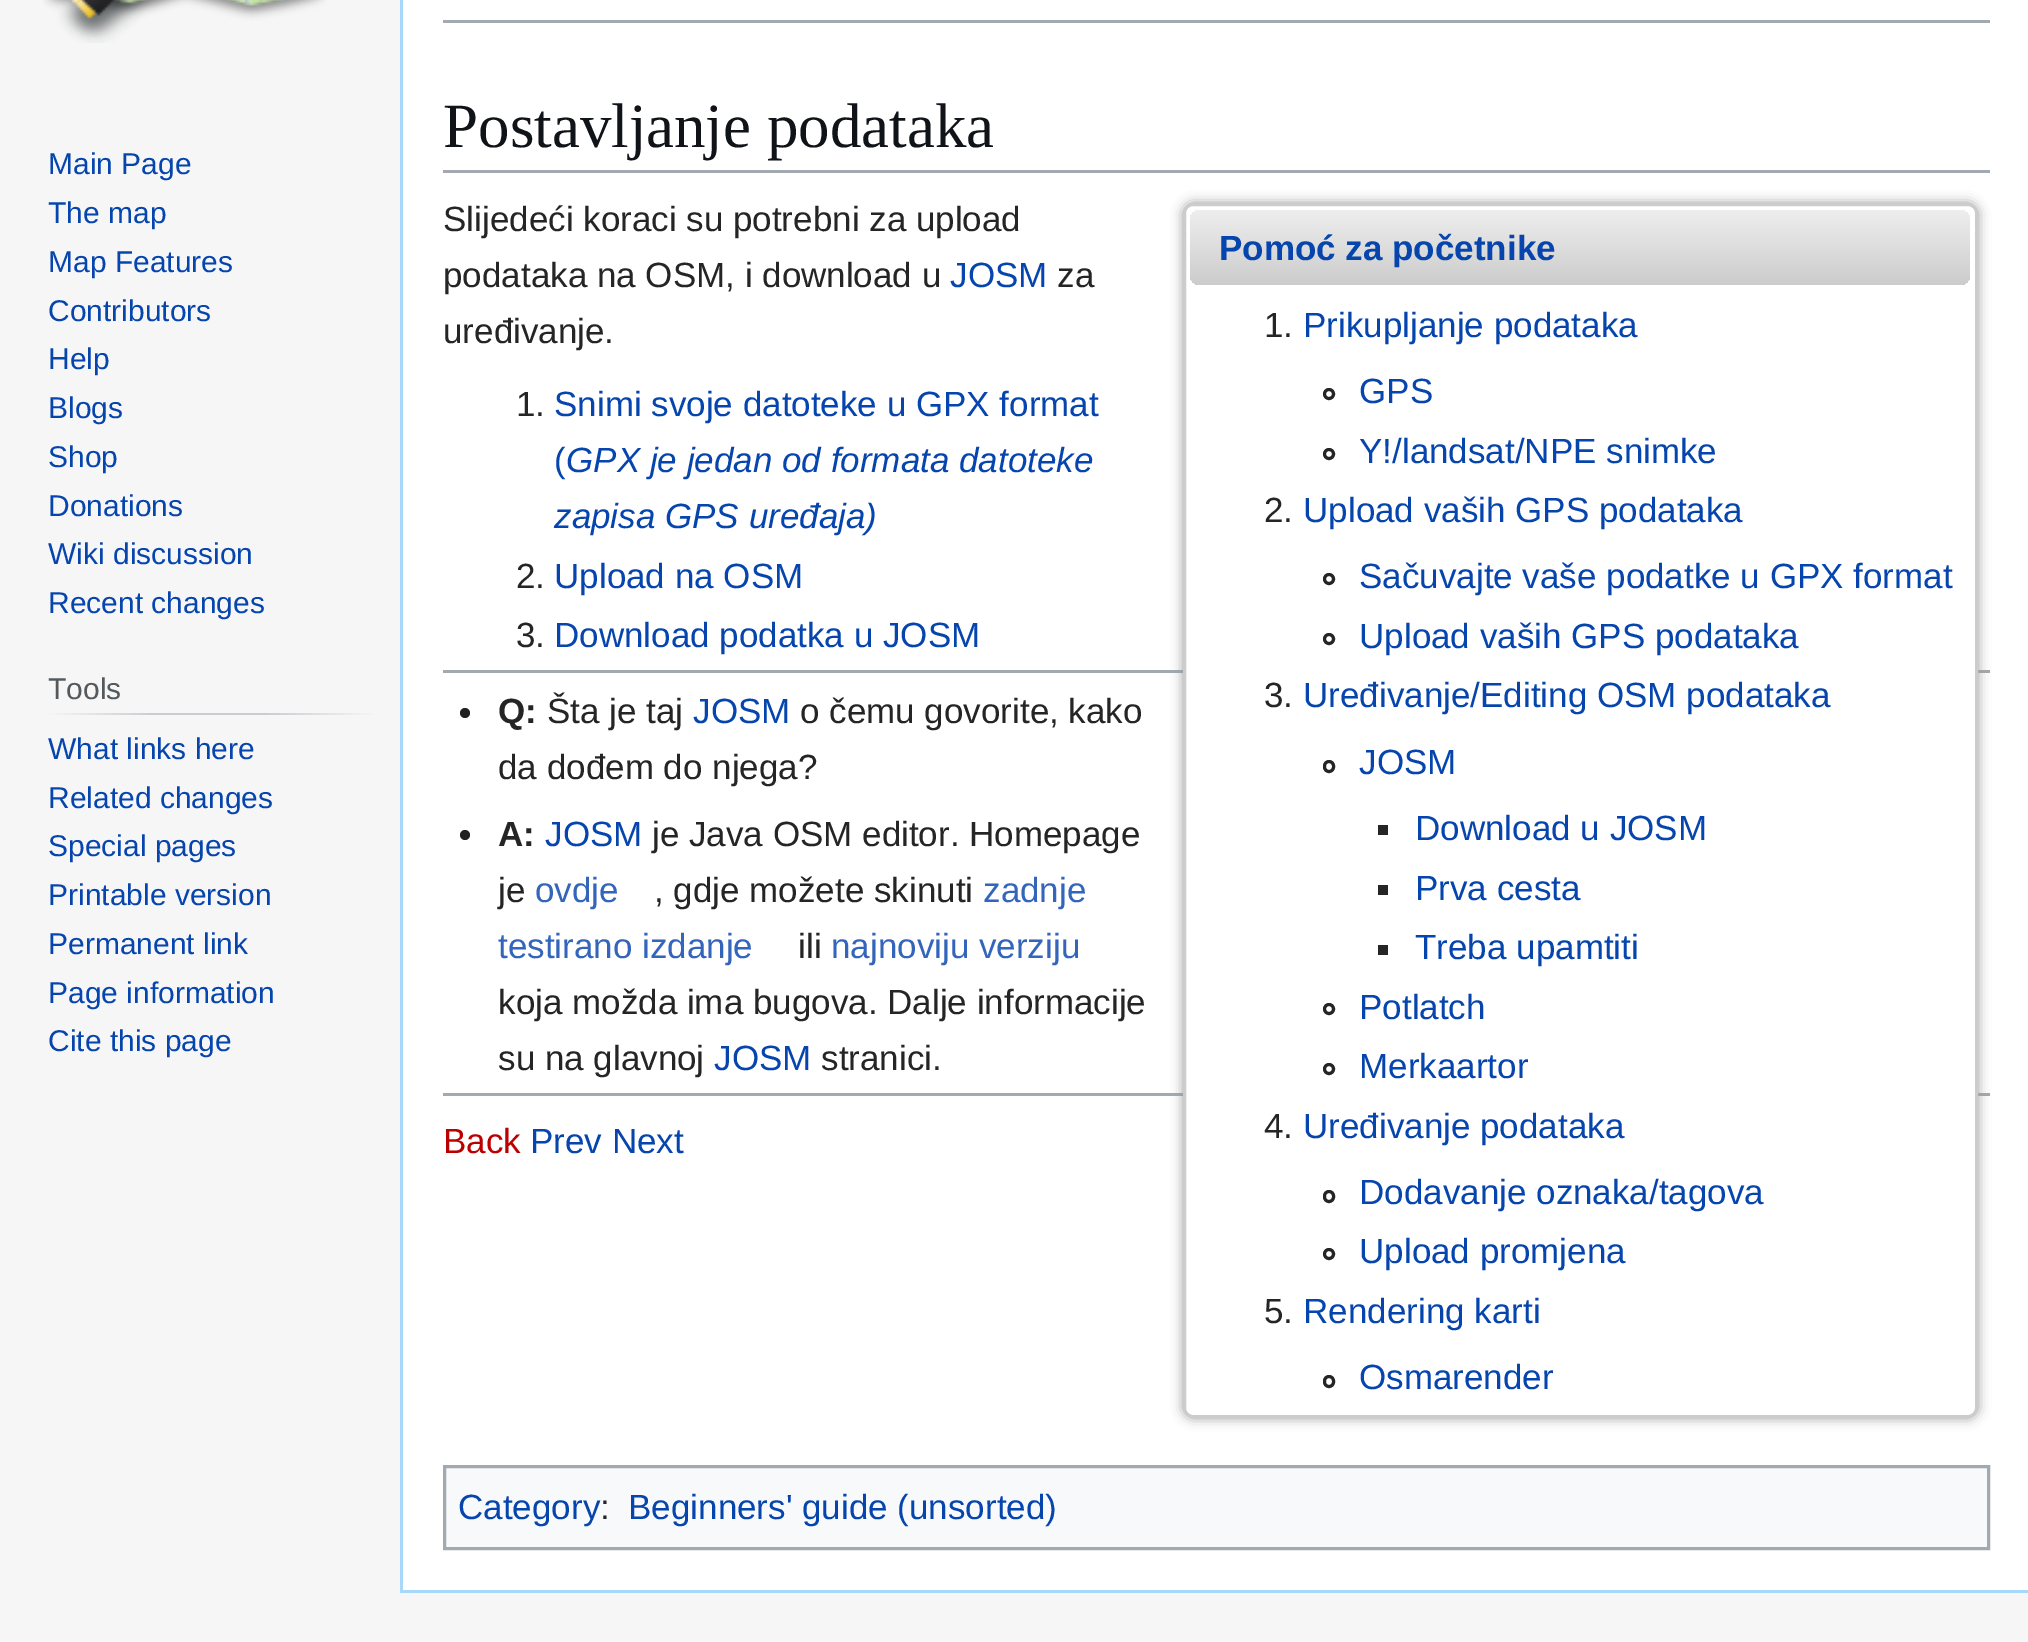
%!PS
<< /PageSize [2028 1642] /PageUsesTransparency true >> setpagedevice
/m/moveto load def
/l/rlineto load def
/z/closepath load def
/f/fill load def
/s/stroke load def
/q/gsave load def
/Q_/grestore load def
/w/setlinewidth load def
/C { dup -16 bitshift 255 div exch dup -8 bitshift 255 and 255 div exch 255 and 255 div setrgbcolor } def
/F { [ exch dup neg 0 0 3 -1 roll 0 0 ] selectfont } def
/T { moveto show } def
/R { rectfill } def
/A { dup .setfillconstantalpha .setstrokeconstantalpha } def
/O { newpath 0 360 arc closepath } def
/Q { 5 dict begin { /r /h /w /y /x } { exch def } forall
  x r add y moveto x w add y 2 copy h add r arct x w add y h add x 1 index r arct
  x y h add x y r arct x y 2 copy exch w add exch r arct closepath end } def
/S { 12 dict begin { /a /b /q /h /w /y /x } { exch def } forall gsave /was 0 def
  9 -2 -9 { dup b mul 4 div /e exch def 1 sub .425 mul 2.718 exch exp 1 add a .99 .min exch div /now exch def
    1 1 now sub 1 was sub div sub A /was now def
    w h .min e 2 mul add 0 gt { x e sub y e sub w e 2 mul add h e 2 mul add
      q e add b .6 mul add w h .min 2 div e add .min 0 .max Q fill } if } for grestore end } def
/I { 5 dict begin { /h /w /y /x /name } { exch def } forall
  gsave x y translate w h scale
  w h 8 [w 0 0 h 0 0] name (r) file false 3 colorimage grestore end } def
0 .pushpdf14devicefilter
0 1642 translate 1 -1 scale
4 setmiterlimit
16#F6F6F6 C
0 0 2028 1642 R
(1.rgb) 43 0 283 43 I
/LiberationSans-Regular 30 F
16#0645AD C
(Main Page) 48 174 T
(The map) 48 223 T
(Map Features) 48 272 T
(Contributors) 48 321 T
(Help) 48 369 T
(Blogs) 48 418 T
(Shop) 48 467 T
(Donations) 48 516 T
(Wiki discussion) 48 564 T
(Recent changes) 48 613 T
q 48 713 m 327 0 l 0 2 l -327 0 l z clip newpath
<< /ShadingType 2 /ColorSpace /DeviceRGB /Coords [48 714 375 714] /Extend [true true] /Function << /FunctionType 3 /Domain [0 1] /Functions [<< /FunctionType 2 /Domain [0 1] /C0 [.965 .965 .965] /C1 [.784 .8 .82] /N 1 >> << /FunctionType 2 /Domain [0 1] /C0 [.784 .8 .82] /C1 [.784 .8 .82] /N 1 >> << /FunctionType 2 /Domain [0 1] /C0 [.784 .8 .82] /C1 [.965 .965 .965] /N 1 >>] /Bounds [.33 .66] /Encode [0 1 0 1 0 1] >> >> shfill Q_
16#54595D C
(Tools) 48 699 T
16#0645AD C
(What links here) 48 759 T
(Related changes) 48 808 T
(Special pages) 48 856 T
(Printable version) 48 905 T
(Permanent link) 48 954 T
(Page information) 48 1003 T
(Cite this page) 48 1051 T
16#FFFFFF C
403 0 1625 1590 R
16#A7D7F9 C
400 1590 1628 3 R
400 0 3 1593 R
16#A2A9B1 C
443 20 1547 3 R
443 170 1547 3 R
/LiberationSerif-Regular 63 F
16#101418 C
(Postavljanje podataka) 443 147 T
/LiberationSans-Regular 35 F
16#252525 C
(Slijedeći koraci su potrebni za upload) 443 231 T
(podataka na OSM, i download u) 443 287 T
16#0645AD C
(JOSM) 950 287 T
16#252525 C
(za) 1057 287 T
(uređivanje.) 443 343 T
16#A2A9B1 C
443 670 1547 3 R
443 1093 1547 3 R
16#999999 C
1183 203 795 1215 10 6 1 S
16#FFFFFF C
1184.5 204.5 792 1212 8.5 Q q f Q_
16#CCCCCC C
3 w
s
q 1190 210 780 75 10 Q clip newpath
<< /ShadingType 2 /ColorSpace /DeviceRGB /Coords [1580 210 1580 285] /Extend [true true] /Function << /FunctionType 2 /Domain [0 1] /C0 [.933 .933 .933] /C1 [.8 .8 .8] /N 1 >> >> shfill Q_
/LiberationSans-Bold 35 F
16#0645AD C
(Pomoć za početnike) 1219 260 T
/LiberationSans-Regular 35 F
16#252525 C
(1.) 1264 337 T
16#0645AD C
(Prikupljanje podataka) 1303 337 T
16#252525 C
1329 394 4.5 O s
16#0645AD C
(GPS) 1359 403 T
16#252525 C
1329 454 4.5 O s
16#0645AD C
(Y!/landsat/NPE snimke) 1359 463 T
16#252525 C
(2.) 1264 522 T
16#0645AD C
(Upload vaših GPS podataka) 1303 522 T
16#252525 C
1329 579 4.5 O s
16#0645AD C
(Sačuvajte vaše podatke u GPX format) 1359 588 T
16#252525 C
1329 639 4.5 O s
16#0645AD C
(Upload vaših GPS podataka) 1359 648 T
16#252525 C
(3.) 1264 707 T
16#0645AD C
(Uređivanje/Editing OSM podataka) 1303 707 T
16#252525 C
1324.5 761.5 9 10 4.5 Q s
16#0645AD C
(JOSM) 1359 774 T
16#252525 C
1378 825 10 10 R
16#0645AD C
(Download u JOSM) 1415 840 T
16#252525 C
1378 885 10 10 R
16#0645AD C
(Prva cesta) 1415 900 T
16#252525 C
1378 945 10 10 R
16#0645AD C
(Treba upamtiti) 1415 959 T
16#252525 C
1329 1009 4.5 O s
16#0645AD C
(Potlatch) 1359 1019 T
16#252525 C
1329 1069 4.5 O s
16#0645AD C
(Merkaartor) 1359 1078 T
16#252525 C
(4.) 1264 1138 T
16#0645AD C
(Uređivanje podataka) 1303 1138 T
16#252525 C
1324.5 1191.5 9 10 4.5 Q s
16#0645AD C
(Dodavanje oznaka/tagova) 1359 1204 T
16#252525 C
1329 1254 4.5 O s
16#0645AD C
(Upload promjena) 1359 1263 T
16#252525 C
(5.) 1264 1323 T
16#0645AD C
(Rendering karti) 1303 1323 T
16#252525 C
1324.5 1376.5 9 10 4.5 Q s
16#0645AD C
(Osmarender) 1359 1389 T
16#252525 C
(1.) 516 416 T
16#0645AD C
(Snimi svoje datoteke u GPX format) 554 416 T
(\() 554 472 T
/LiberationSans-Italic 35 F
(GPX je jedan od formata datoteke) 566 472 T
(zapisa GPS uređaja\)) 554 528 T
/LiberationSans-Regular 35 F
16#252525 C
(2.) 516 588 T
16#0645AD C
(Upload na OSM) 554 588 T
16#252525 C
(3.) 516 647 T
16#0645AD C
(Download podatka u JOSM) 554 647 T
16#202122 C
465 713 5 O f
/LiberationSans-Bold 35 F
16#252525 C
(Q:) 498 723 T
/LiberationSans-Regular 35 F
(Šta je taj) 547 723 T
16#0645AD C
(JOSM) 693 723 T
16#252525 C
(o čemu govorite, kako) 800 723 T
(da dođem do njega?) 498 779 T
16#202122 C
465 835 5 O f
/LiberationSans-Bold 35 F
16#252525 C
(A:) 498 846 T
/LiberationSans-Regular 35 F
16#0645AD C
(JOSM) 545 846 T
16#252525 C
(je Java OSM editor. Homepage) 652 846 T
(je) 498 902 T
16#3366BB C
(ovdje) 535 902 T
16#252525 C
(, gdje možete skinuti) 654 902 T
16#3366BB C
(zadnje) 983 902 T
(testirano izdanje) 498 958 T
16#252525 C
(ili) 798 958 T
16#3366BB C
(najnoviju verziju) 831 958 T
16#252525 C
(koja možda ima bugova. Dalje informacije) 498 1014 T
(su na glavnoj) 498 1070 T
16#0645AD C
(JOSM) 714 1070 T
16#252525 C
(stranici.) 821 1070 T
16#BA0000 C
(Back) 443 1153 T
16#0645AD C
(Prev Next) 530 1153 T
16#F8F9FA C
444.5 1466.5 m 1544 0 l 0 82 l -1544 0 l z q f Q_
16#A2A9B1 C
s
16#0645AD C
(Category) 458 1519 T
16#252525 C
(:) 600 1519 T
16#0645AD C
(Beginners' guide \(unsorted\)) 628 1519 T
.poppdf14devicefilter showpage
